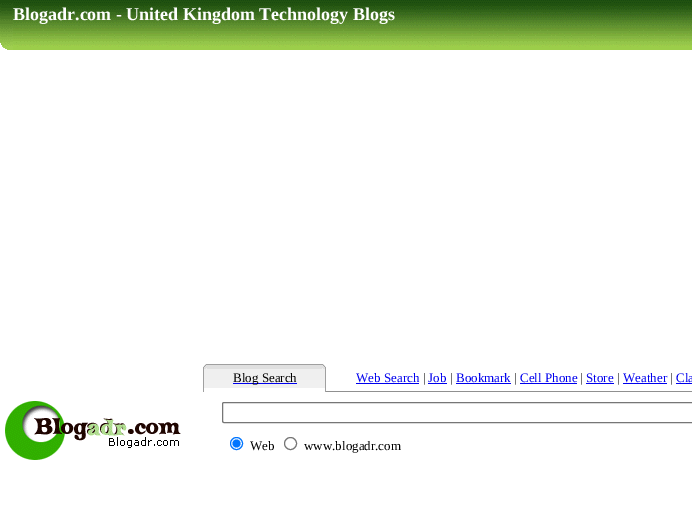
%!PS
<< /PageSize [692 529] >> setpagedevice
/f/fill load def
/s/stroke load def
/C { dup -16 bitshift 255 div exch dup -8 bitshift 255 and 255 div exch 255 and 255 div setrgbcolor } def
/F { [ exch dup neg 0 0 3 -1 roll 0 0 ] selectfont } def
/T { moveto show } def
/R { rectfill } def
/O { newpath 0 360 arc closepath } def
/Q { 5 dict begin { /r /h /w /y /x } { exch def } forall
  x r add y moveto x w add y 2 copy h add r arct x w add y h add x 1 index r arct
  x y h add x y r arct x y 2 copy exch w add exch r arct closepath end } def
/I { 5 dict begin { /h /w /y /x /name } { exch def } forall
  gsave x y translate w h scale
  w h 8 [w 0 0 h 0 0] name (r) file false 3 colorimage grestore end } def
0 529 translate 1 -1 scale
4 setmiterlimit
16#FFFFFF C
0 0 692 529 R
(1.rgb) 0 0 13 50 I
(2.rgb) 13 0 679 50 I
/LiberationSerif-Bold 18 F
(Blogadr.com - United Kingdom Technology Blogs) 13 20 T
(3.rgb) 5 401 176 59 I
(4.rgb) 203 364 8 28 I
16#909090 C
319 391 373 1 R
(5.rgb) 319 364 7 28 I
(6.rgb) 211 364 108 24 I
16#0000EE C
233 383 64 1 R
/LiberationSerif-Regular 13 F
16#000000 C
(Blog Search) 233 382 T
16#0000EE C
(Web Search) 356 382 T
356 383 63 1 R
16#000000 C
(|) 423 382 T
16#0000EE C
(Job) 428 382 T
428 383 19 1 R
16#000000 C
(|) 450 382 T
16#0000EE C
(Bookmark) 456 382 T
456 383 55 1 R
16#000000 C
(|) 514 382 T
16#0000EE C
(Cell Phone) 520 382 T
520 383 57 1 R
16#000000 C
(|) 580 382 T
16#0000EE C
(Store) 586 382 T
586 383 28 1 R
16#000000 C
(|) 617 382 T
16#0000EE C
(Weather) 623 382 T
623 383 44 1 R
16#000000 C
(|) 670 382 T
16#0000EE C
(Cla) 676 382 T
676 383 16 1 R
16#767676 C
222.5 402.5 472 20 1.5 Q s
16#0075FF C
236.5 443.5 6 O s
236.5 443.5 4 O f
16#000000 C
(Web) 250 450 T
16#767676 C
290.5 443.5 6 O s
16#000000 C
(www.blogadr.com) 304 450 T
showpage
